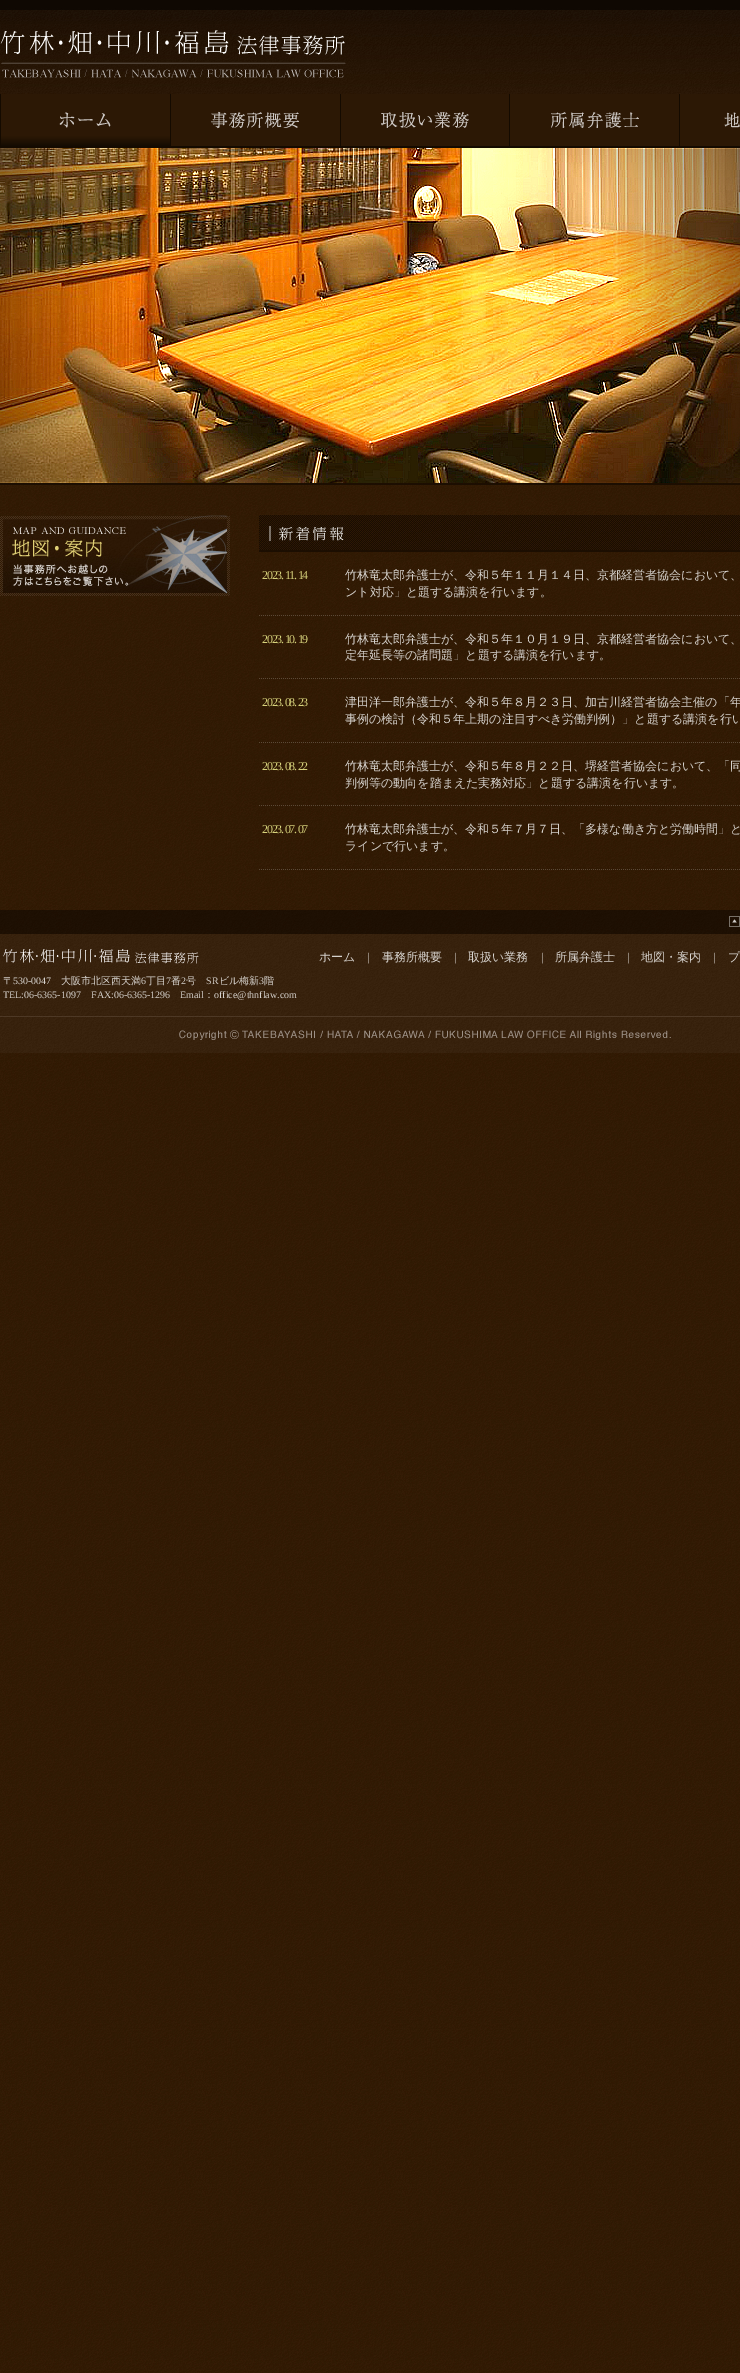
%!PS
<< /PageSize [740 2373] >> setpagedevice
/m/moveto load def
/l/rlineto load def
/z/closepath load def
/q/gsave load def
/Q_/grestore load def
/C { dup -16 bitshift 255 div exch dup -8 bitshift 255 and 255 div exch 255 and 255 div setrgbcolor } def
/F { [ exch dup neg 0 0 3 -1 roll 0 0 ] selectfont } def
/T { moveto show } def
/R { rectfill } def
/I { 5 dict begin { /h /w /y /x /name } { exch def } forall
  gsave x y translate w h scale
  w h 8 [w 0 0 h 0 0] name (r) file false 3 colorimage grestore end } def
0 2373 translate 1 -1 scale
4 setmiterlimit
16#FFFFFF C
0 0 740 2373 R
(1.rgb) 0 485 740 1888 I
(2.rgb) 0 0 740 148 I
(3.rgb) 0 30 346 48 I
16#140A00 C
0 94 1 52 R
170 94 1 52 R
16#2C1805 C
1 94 169 42 R
(4.rgb) 59 112 52 16 I
q 1 136 m 169 0 l 0 10 l -169 0 l z clip newpath
<< /ShadingType 2 /ColorSpace /DeviceRGB /Coords [86 136 86 146] /Extend [true true] /Function << /FunctionType 2 /Domain [0 1] /C0 [.173 .094 .02] /C1 [.082 .047 .008] /N 1 >> >> shfill Q_
16#140A00 C
340 94 1 52 R
16#2C1805 C
171 94 169 52 R
(5.rgb) 211 111 88 18 I
16#140A00 C
509 94 1 52 R
16#2C1805 C
341 94 168 52 R
(6.rgb) 381 112 88 16 I
16#140A00 C
679 94 1 52 R
16#2C1805 C
510 94 169 52 R
(7.rgb) 551 112 88 16 I
680 94 60 52 R
(8.rgb) 724 112 16 16 I
(9.rgb) 0 483 740 2 I
(10.rgb) 0 148 740 335 I
(11.rgb) 0 515 230 81 I
(12.rgb) 259 515 481 37 I
(13.rgb) 259 615 481 1 I
/LiberationSerif-Regular 12 F
16#D6D17B C
262 579 m -1.25 0 (2023. 11. 14) ashow
/WenQuanYiZenHei-Medium 12 F
16#D6D2CD C
(竹林竜太郎弁護士が、令和５年１１月１４日、京都経営者協会において、) 345 579 T
(ント対応」と題する講演を行います。) 345 596 T
(14.rgb) 259 678 481 1 I
/LiberationSerif-Regular 12 F
16#D6D17B C
262 643 m -1.25 0 (2023. 10. 19) ashow
/WenQuanYiZenHei-Medium 12 F
16#D6D2CD C
(竹林竜太郎弁護士が、令和５年１０月１９日、京都経営者協会において、) 345 643 T
(定年延長等の諸問題」と題する講演を行います。) 345 659 T
(15.rgb) 259 742 481 1 I
/LiberationSerif-Regular 12 F
16#D6D17B C
262 706 m -1.25 0 (2023. 08. 23) ashow
/WenQuanYiZenHei-Medium 12 F
16#D6D2CD C
(津田洋一郎弁護士が、令和５年８月２３日、加古川経営者協会主催の「年) 345 706 T
(事例の検討（令和５年上期の注目すべき労働判例）」と題する講演を行い) 345 723 T
(16.rgb) 259 805 481 1 I
/LiberationSerif-Regular 12 F
16#D6D17B C
262 770 m -1.25 0 (2023. 08. 22) ashow
/WenQuanYiZenHei-Medium 12 F
16#D6D2CD C
(竹林竜太郎弁護士が、令和５年８月２２日、堺経営者協会において、「同) 345 770 T
(判例等の動向を踏まえた実務対応」と題する講演を行います。) 345 787 T
(17.rgb) 259 869 481 1 I
/LiberationSerif-Regular 12 F
16#D6D17B C
262 833 m -1.25 0 (2023. 07. 07) ashow
/WenQuanYiZenHei-Medium 12 F
16#D6D2CD C
(竹林竜太郎弁護士が、令和５年７月７日、「多様な働き方と労働時間」と) 345 833 T
(ラインで行います。) 345 850 T
(18.rgb) 0 910 740 143 I
(19.rgb) 729 916 11 11 I
(20.rgb) 3 949 196 15 I
(ホーム) 319 961 T
/LiberationSerif-Regular 12 F
(|) 367 961 T
/WenQuanYiZenHei-Medium 12 F
(事務所概要) 382 961 T
/LiberationSerif-Regular 12 F
(|) 454 961 T
/WenQuanYiZenHei-Medium 12 F
(取扱い業務) 468 961 T
/LiberationSerif-Regular 12 F
(|) 541 961 T
/WenQuanYiZenHei-Medium 12 F
(所属弁護士) 555 961 T
/LiberationSerif-Regular 12 F
(|) 627 961 T
/WenQuanYiZenHei-Medium 12 F
(地図・案内) 641 961 T
/LiberationSerif-Regular 12 F
(|) 713 961 T
/WenQuanYiZenHei-Medium 12 F
(プ) 728 961 T
/WenQuanYiZenHei-Medium 10 F
(〒) 3 984 T
/LiberationSerif-Regular 10 F
(530-0047) 13 984 T
/WenQuanYiZenHei-Medium 10 F
(大阪市北区西天満) 61 984 T
/LiberationSerif-Regular 10 F
(6) 141 984 T
/WenQuanYiZenHei-Medium 10 F
(丁目) 146 984 T
/LiberationSerif-Regular 10 F
(7) 166 984 T
/WenQuanYiZenHei-Medium 10 F
(番) 171 984 T
/LiberationSerif-Regular 10 F
(2) 181 984 T
/WenQuanYiZenHei-Medium 10 F
(号) 186 984 T
/LiberationSerif-Regular 10 F
(SR) 206 984 T
/WenQuanYiZenHei-Medium 10 F
(ビル梅新) 219 984 T
/LiberationSerif-Regular 10 F
(3) 259 984 T
/WenQuanYiZenHei-Medium 10 F
(階) 264 984 T
/LiberationSerif-Regular 10 F
(TEL:06-6365-1097) 3 998 T
(FAX:06-6365-1296) 91 998 T
(Email) 180 998 T
/WenQuanYiZenHei-Medium 10 F
(：) 204 998 T
/LiberationSerif-Regular 10 F
(office@thnflaw.com) 214 998 T
(21.rgb) 179 1030 492 10 I
showpage
